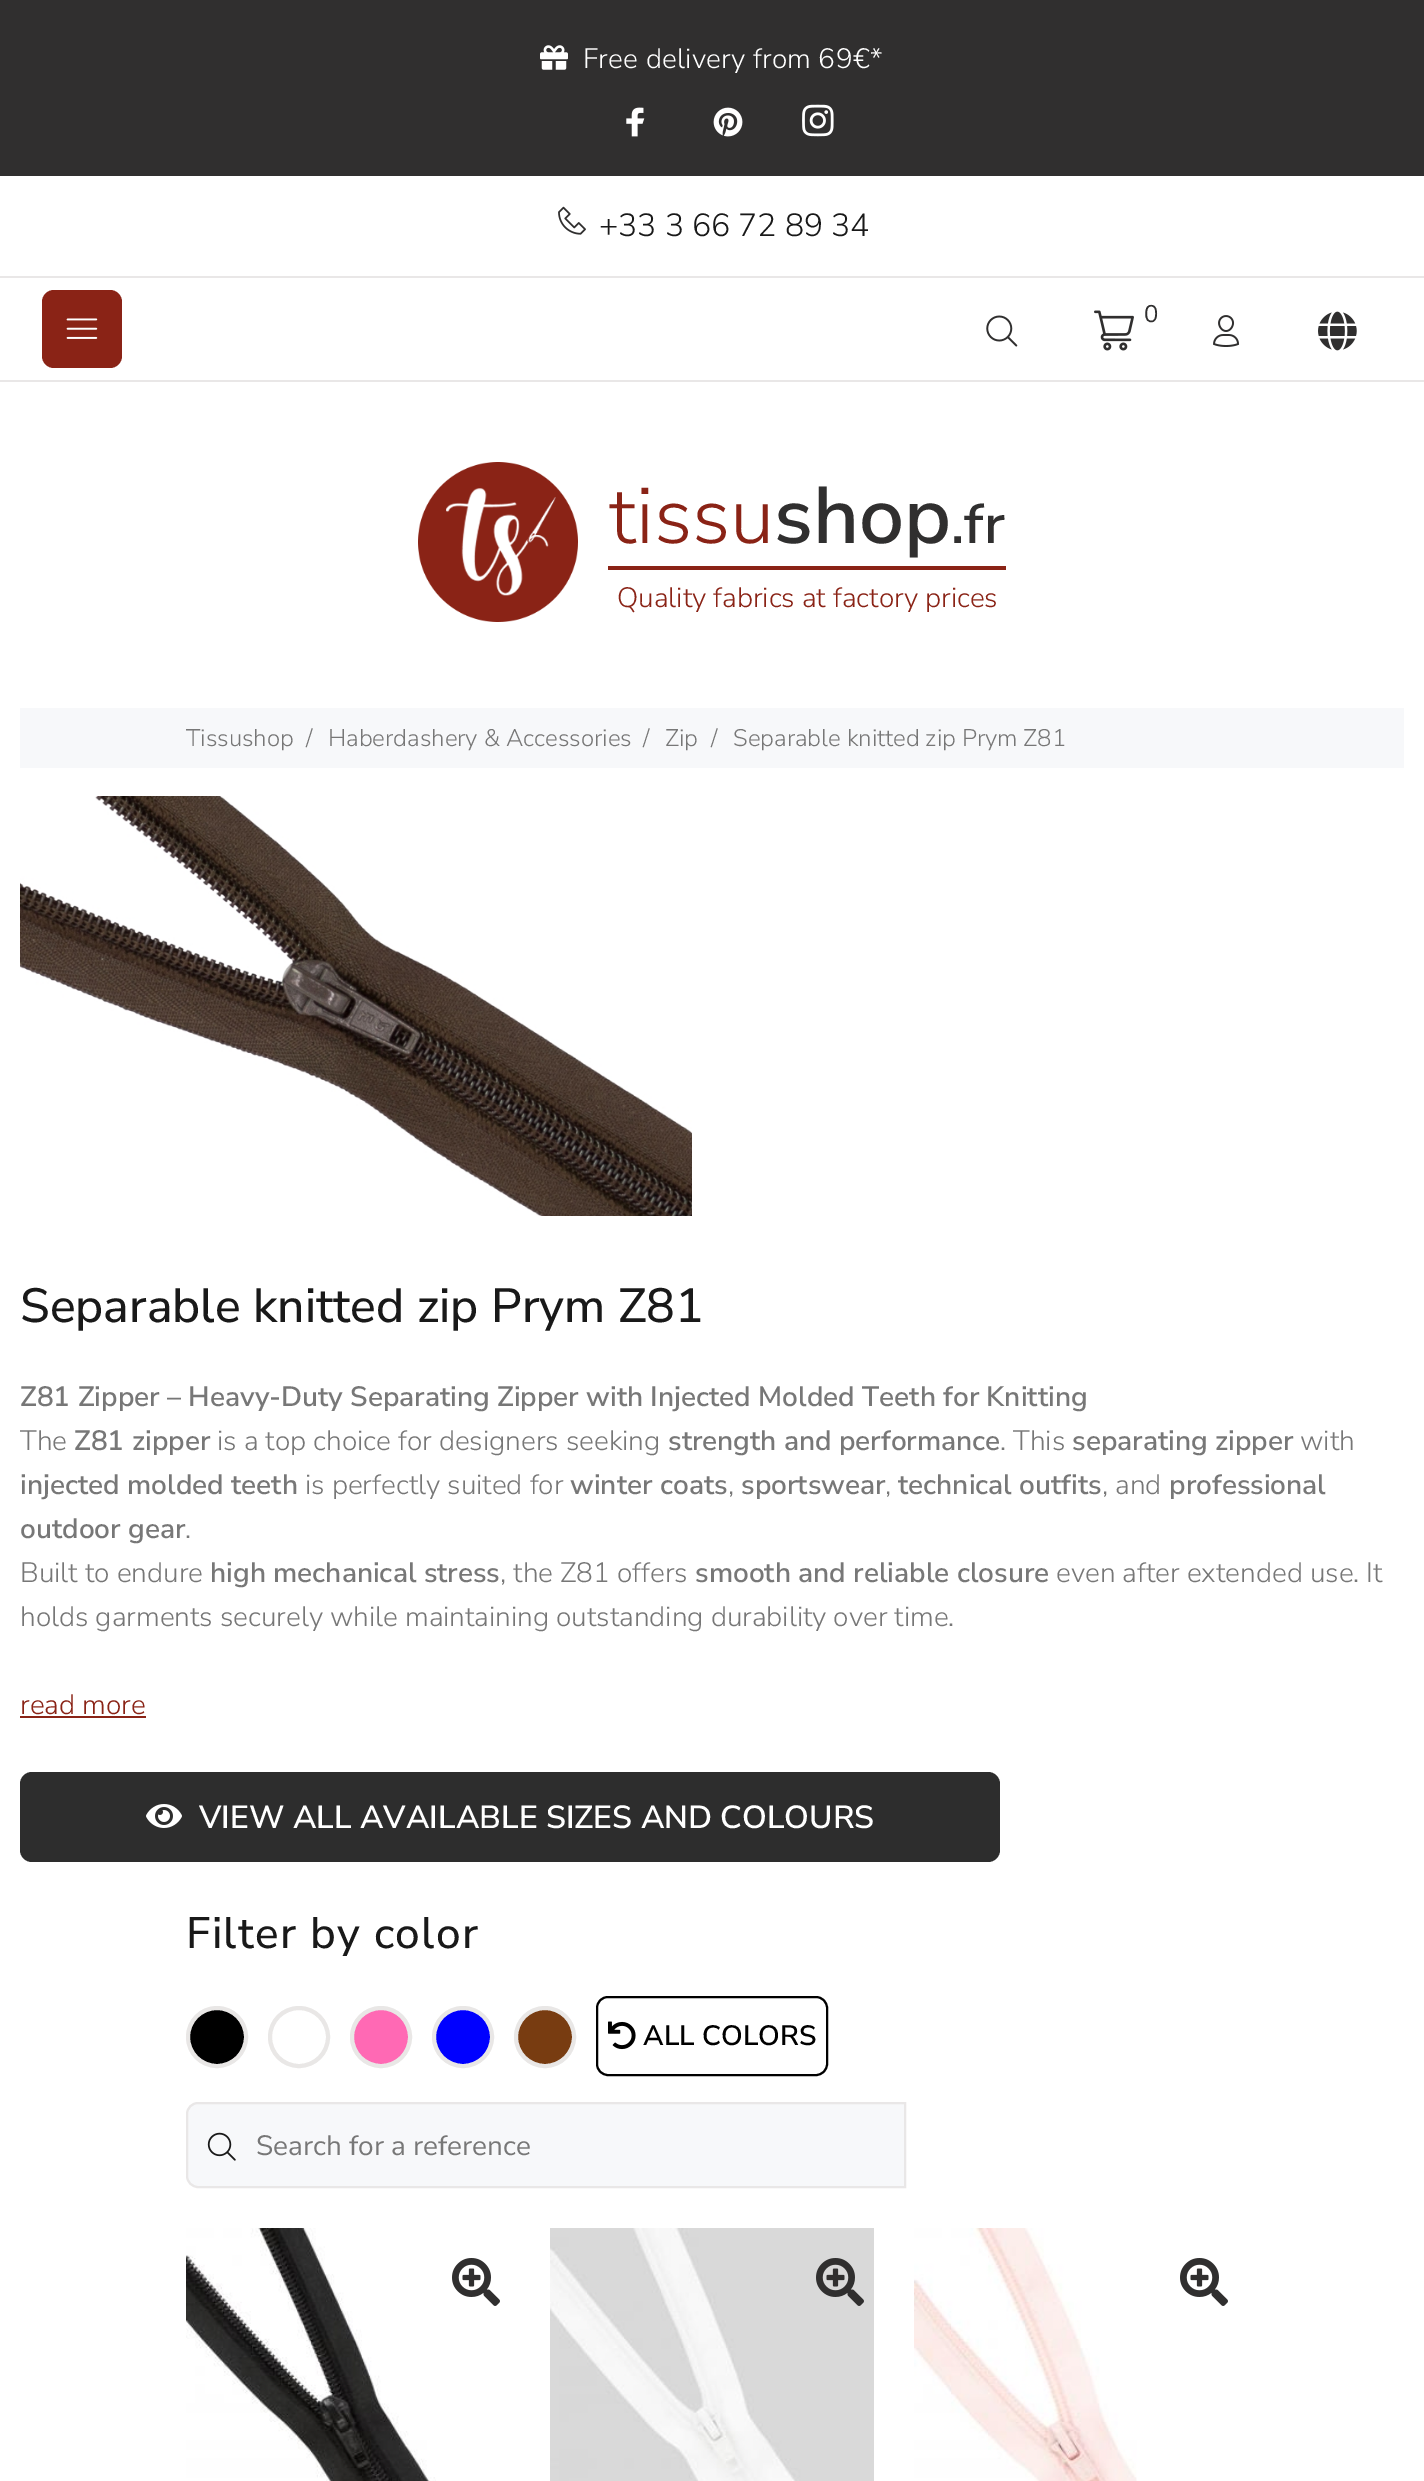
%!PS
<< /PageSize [1424 2481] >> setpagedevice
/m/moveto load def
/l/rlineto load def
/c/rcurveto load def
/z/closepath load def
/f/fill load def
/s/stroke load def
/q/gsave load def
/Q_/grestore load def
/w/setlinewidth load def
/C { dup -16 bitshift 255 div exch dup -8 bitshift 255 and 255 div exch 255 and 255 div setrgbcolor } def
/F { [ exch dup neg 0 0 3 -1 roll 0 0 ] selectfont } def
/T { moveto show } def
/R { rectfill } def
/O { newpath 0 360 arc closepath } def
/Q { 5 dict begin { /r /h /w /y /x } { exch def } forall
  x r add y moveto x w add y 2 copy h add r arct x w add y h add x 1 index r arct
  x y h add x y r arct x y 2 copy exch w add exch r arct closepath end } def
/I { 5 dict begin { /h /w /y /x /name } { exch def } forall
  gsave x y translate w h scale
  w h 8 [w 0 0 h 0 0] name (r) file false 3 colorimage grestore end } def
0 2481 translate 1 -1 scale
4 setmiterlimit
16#FFFFFF C
0 0 1424 2481 R
16#302F2F C
0 0 1424 176 R
(1.rgb) 540 45 28 25 I
/NunitoSans-Light 28 F
16#FFFFFF C
583 68 m .25 0 (Free delivery from 69€*) ashow
(2.rgb) 626 107 19 30 I
(3.rgb) 713 107 30 30 I
(4.rgb) 802 104 32 33 I
(5.rgb) 558 206 28 29 I
/NunitoSans-Light 32 F
16#191919 C
(+33 3 66 72 89 34) 599 236 T
16#E9E7E7 C
0 276 1424 2 R
16#8A2316 C
42 290 80 78 12 Q f
(6.rgb) 66 318 32 21 I
(7.rgb) 986 315 32 32 I
(8.rgb) 1094 310 40 41 I
/NunitoSans-Regular 24 F
16#302F2F C
(0) 1144 322 T
(9.rgb) 1213 315 27 32 I
(10.rgb) 1318 311 39 40 I
16#E9E7E7 C
0 380 1424 2 R
(11.rgb) 418 462 160 160 I
/NunitoSans-Light 80 F
16#8A2316 C
(tissu) 609 543 T
/NunitoSans-SemiBold 80 F
16#302F2F C
(shop) 774 543 T
/NunitoSans-SemiBold 56 F
(.fr) 951 543 T
16#8A2316 C
608 566 398 4 R
/NunitoSans-Light 28 F
(Quality fabrics at factory prices) 617 607 T
16#F7F8FA C
20 708 1384 60 R
/NunitoSans-Light 24 F
16#777777 C
(Tissushop) 186 746 T
(/) 306 746 T
(Haberdashery & Accessories) 328 746 T
(/) 643 746 T
(Zip) 665 746 T
(/) 711 746 T
(Separable knitted zip Prym Z81) 733 746 T
(12.rgb) 20 796 672 420 I
/NunitoSans-Medium 48 F
16#191919 C
(Separable knitted zip Prym Z81) 20 1322 T
/NunitoSans-SemiBold 28 F
16#777777 C
(Z81 Zipper – Heavy-Duty Separating Zipper with Injected Molded Teeth for Knitting) 20 1406 T
/NunitoSans-Light 28 F
(The) 20 1450 T
/NunitoSans-SemiBold 28 F
(Z81 zipper) 74 1450 T
/NunitoSans-Light 28 F
(is a top choice for designers seeking) 217 1450 T
/NunitoSans-SemiBold 28 F
(strength and performance) 668 1450 T
/NunitoSans-Light 28 F
(. This) 1000 1450 T
/NunitoSans-SemiBold 28 F
(separating zipper) 1072 1450 T
/NunitoSans-Light 28 F
(with) 1300 1450 T
/NunitoSans-SemiBold 28 F
(injected molded teeth) 20 1494 T
/NunitoSans-Light 28 F
(is perfectly suited for) 305 1494 T
/NunitoSans-SemiBold 28 F
(winter coats) 570 1494 T
/NunitoSans-Light 28 F
(,) 728 1494 T
/NunitoSans-SemiBold 28 F
(sportswear) 741 1494 T
/NunitoSans-Light 28 F
(,) 885 1494 T
/NunitoSans-SemiBold 28 F
(technical outfits) 898 1494 T
/NunitoSans-Light 28 F
(, and) 1102 1494 T
/NunitoSans-SemiBold 28 F
(professional) 1169 1494 T
(outdoor gear) 20 1538 T
/NunitoSans-Light 28 F
(.) 185 1538 T
(Built to endure) 20 1582 T
/NunitoSans-SemiBold 28 F
(high mechanical stress) 210 1582 T
/NunitoSans-Light 28 F
(, the Z81 offers) 500 1582 T
/NunitoSans-SemiBold 28 F
(smooth and reliable closure) 695 1582 T
/NunitoSans-Light 28 F
(even after extended use. It) 1056 1582 T
(holds garments securely while maintaining outstanding durability over time.) 20 1626 T
16#8A2316 C
(read more) 20 1714 T
20 1716 126 2 R
16#2D2D2D C
20 1772 980 90 12 Q f
(13.rgb) 146 1804 36 24 I
/NunitoSans-SemiBold 32 F
16#FFFFFF C
(VIEW ALL AVAILABLE SIZES AND COLOURS) 199 1828 T
/NunitoSans-Medium 44 F
16#191919 C
186 1948 m 1.3 0 (Filter by color) ashow
16#000000 C
217 2037 29 O q f Q_
16#E9E7E6 C
4 w
s
299 2037 29 O s
16#FF69B4 C
381 2037 29 O q f Q_
16#E9E7E6 C
s
16#0000FF C
463 2037 29 O q f Q_
16#E9E7E6 C
s
16#783C11 C
545 2037 29 O q f Q_
16#E9E7E6 C
s
16#000000 C
2 w
597 1997 230 78 11 Q s
(14.rgb) 608 2021 28 29 I
/NunitoSans-SemiBold 28 F
(ALL COLORS) 643 2045 T
16#F7F8FA C
198 2103 m 707 0 l 0 84 l -707 0 l -6 0 -11 -5 -11 -11 c 0 -62 l 0 -6 5 -11 11 -11 c z q f Q_
16#E9E7E7 C
s
(15.rgb) 207 2132 29 29 I
/NunitoSans-Regular 28 F
16#777777 C
(Search for a reference) 256 2155 T
(16.rgb) 186 2228 250 253 I
(17.rgb) 452 2258 48 48 I
(18.rgb) 550 2228 324 253 I
(19.rgb) 816 2258 48 48 I
(20.rgb) 914 2228 223 253 I
(17.rgb) 1180 2258 48 48 I
showpage
